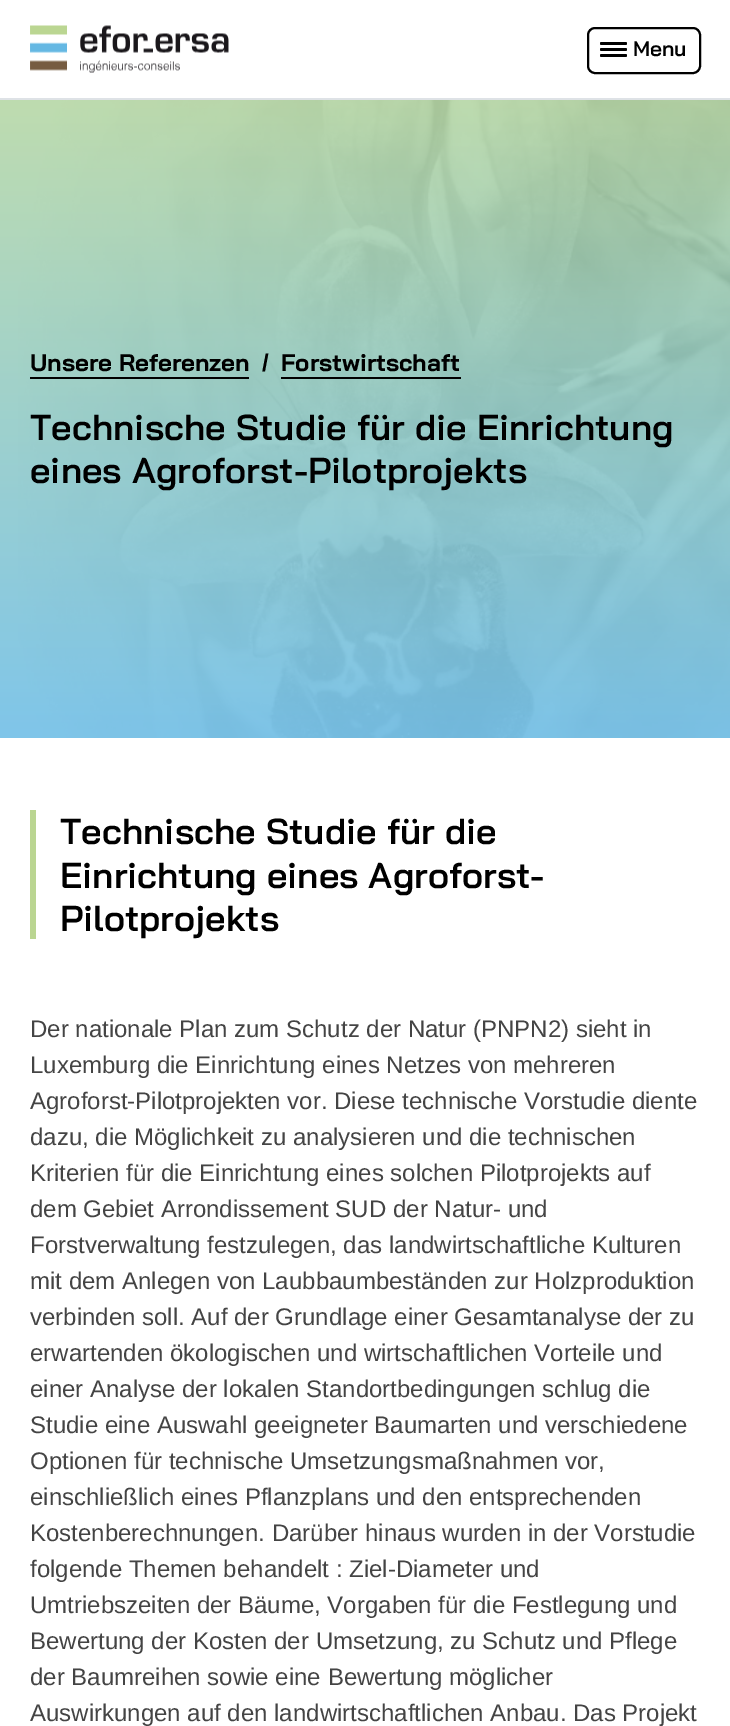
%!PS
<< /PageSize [730 1726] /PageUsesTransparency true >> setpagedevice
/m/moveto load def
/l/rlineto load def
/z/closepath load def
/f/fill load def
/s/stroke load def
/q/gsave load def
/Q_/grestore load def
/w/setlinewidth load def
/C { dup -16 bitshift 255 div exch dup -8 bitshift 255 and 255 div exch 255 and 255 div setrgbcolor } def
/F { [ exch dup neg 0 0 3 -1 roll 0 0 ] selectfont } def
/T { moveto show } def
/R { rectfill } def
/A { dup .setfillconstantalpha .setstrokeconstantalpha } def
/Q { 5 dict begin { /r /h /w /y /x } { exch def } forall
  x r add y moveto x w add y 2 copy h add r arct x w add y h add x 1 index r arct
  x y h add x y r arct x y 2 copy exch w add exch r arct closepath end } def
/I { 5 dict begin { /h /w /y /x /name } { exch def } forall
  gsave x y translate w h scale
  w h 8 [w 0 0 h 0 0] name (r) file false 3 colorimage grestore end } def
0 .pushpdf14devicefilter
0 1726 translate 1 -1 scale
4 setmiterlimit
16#FFFFFF C
0 0 730 1726 R
16#DEE2E6 C
0 98 730 2 R
(1.rgb) 30 25 199 48 I
16#000000 C
2 w
588 28 112 45 7 Q s
600 42 27 3 1.5 Q f
600 48 27 3 1.5 Q f
600 54 27 3 1.5 Q f
/BaiJamjuree-SemiBold 21 F
(Menu) 633 56 T
(2.rgb) 18 100 712 638 I
0.8 A
q 0 100 m 730 0 l 0 638 l -730 0 l z clip newpath
<< /ShadingType 2 /ColorSpace /DeviceRGB /Coords [365 0 365 738] /Extend [true true] /Function << /FunctionType 2 /Domain [0 1] /C0 [.729 .843 .565] /C1 [.373 .718 .894] /N 1 >> >> shfill Q_
/BaiJamjuree-Bold 24 F
1 A
(Unsere Referenzen) 30 371 T
30 377 219 2 R
/Arimo-Bold 24 F
(/) 262 371 T
/BaiJamjuree-Bold 24 F
(Forstwirtschaft) 281 371 T
281 377 180 2 R
/BaiJamjuree-SemiBold 36 F
(Technische Studie für die Einrichtung) 30 440 T
(eines Agroforst-Pilotprojekts) 30 483 T
16#BAD591 C
30 810 6 129 R
16#000000 C
(Technische Studie für die) 60 844 T
(Einrichtung eines Agroforst-) 60 888 T
(Pilotprojekts) 60 931 T
/Arimo-Regular 24 F
16#444444 C
(Der nationale Plan zum Schutz der Natur \(PNPN2\) sieht in) 30 1037 T
(Luxemburg die Einrichtung eines Netzes von mehreren) 30 1073 T
(Agroforst-Pilotprojekten vor. Diese technische Vorstudie diente) 30 1109 T
(dazu, die Möglichkeit zu analysieren und die technischen) 30 1145 T
(Kriterien für die Einrichtung eines solchen Pilotprojekts auf) 30 1181 T
(dem Gebiet Arrondissement SUD der Natur- und) 30 1217 T
(Forstverwaltung festzulegen, das landwirtschaftliche Kulturen) 30 1253 T
(mit dem Anlegen von Laubbaumbeständen zur Holzproduktion) 30 1289 T
(verbinden soll. Auf der Grundlage einer Gesamtanalyse der zu) 30 1325 T
(erwartenden ökologischen und wirtschaftlichen Vorteile und) 30 1361 T
(einer Analyse der lokalen Standortbedingungen schlug die) 30 1397 T
(Studie eine Auswahl geeigneter Baumarten und verschiedene) 30 1433 T
(Optionen für technische Umsetzungsmaßnahmen vor,) 30 1469 T
(einschließlich eines Pflanzplans und den entsprechenden) 30 1505 T
(Kostenberechnungen. Darüber hinaus wurden in der Vorstudie) 30 1541 T
(folgende Themen behandelt : Ziel-Diameter und) 30 1577 T
(Umtriebszeiten der Bäume, Vorgaben für die Festlegung und) 30 1613 T
(Bewertung der Kosten der Umsetzung, zu Schutz und Pflege) 30 1649 T
(der Baumreihen sowie eine Bewertung möglicher) 30 1685 T
(Auswirkungen auf den landwirtschaftlichen Anbau. Das Projekt) 30 1721 T
.poppdf14devicefilter showpage
